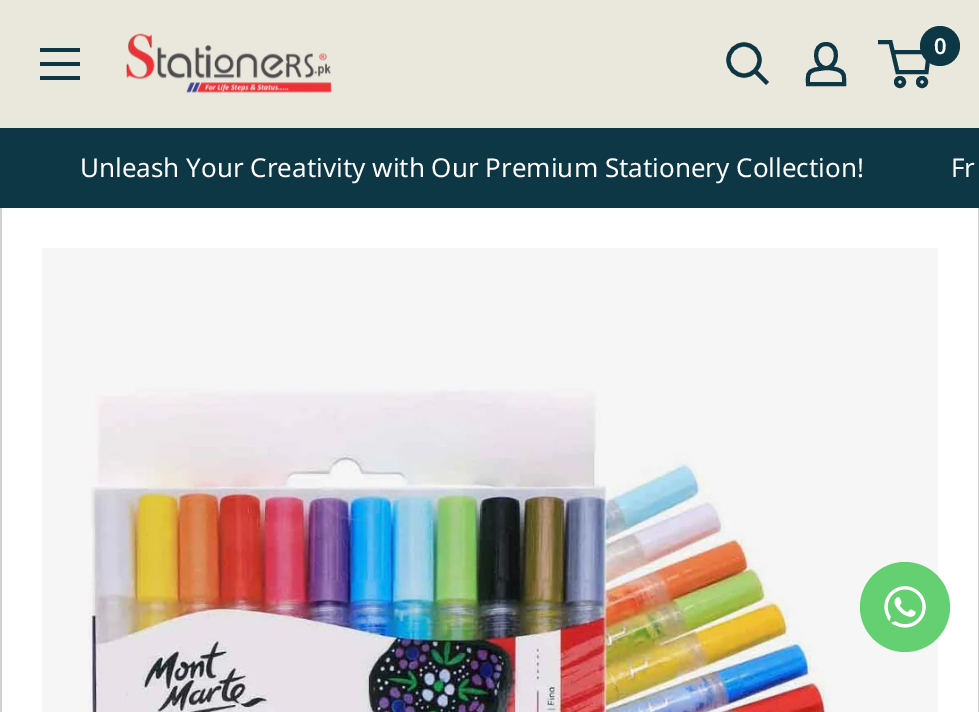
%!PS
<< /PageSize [979 712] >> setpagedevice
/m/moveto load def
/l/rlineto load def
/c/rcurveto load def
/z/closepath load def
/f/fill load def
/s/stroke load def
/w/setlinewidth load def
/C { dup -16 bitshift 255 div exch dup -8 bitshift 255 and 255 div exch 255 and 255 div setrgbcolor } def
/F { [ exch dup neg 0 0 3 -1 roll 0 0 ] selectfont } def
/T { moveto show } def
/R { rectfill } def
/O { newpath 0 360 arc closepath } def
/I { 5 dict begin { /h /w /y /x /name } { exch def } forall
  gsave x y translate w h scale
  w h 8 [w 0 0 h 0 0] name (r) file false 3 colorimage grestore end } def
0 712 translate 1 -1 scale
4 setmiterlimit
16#FFFFFF C
0 0 979 712 R
16#EAE8DC C
0 0 979 128 R
(1.rgb) 126 33 206 60 I
16#0E3746 C
4.2 w
2 setlinecap
766 82 m -10.5 -10.5 l s
0 setlinecap
744 60 15.5 O s
4 w
826 68 m 4 0 7.5 .5 11 1.5 c 8.5 2.5 7 7 7 14.5 c -36 0 l 0 -8 -1.5 -12.5 7.5 -14.5 c z 826 68 m -12 0 -14.5 -24 0 -24 c 14.5 0 12 24 0 24 c z s
900 82 4 O s
922 82 4 O s
892.5 52 m 36.5 0 l -2.5 20 l -29 0 l -7 -30 l -12.5 0 l s
940 46 20 O f
/NotoSans-SemiBold 22 F
16#FFFFFF C
(0) 934 54 T
16#0E3746 C
40 76 m 40 0 l 0 4 l -40 0 l z 40 48 m 40 0 l 0 4 l -40 0 l z 40 62 m 40 0 l 0 4 l -40 0 l z eofill
0 128 979 80 R
/NotoSans-Regular 26 F
16#FFFFFF C
(Unleash Your Creativity with Our Premium Stationery Collection!) 80 177 T
(Fr) 951 177 T
16#D2D2D2 C
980 208 m 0 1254 l -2 -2 l 0 -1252 l z f
0 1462 m 0 -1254 l 2 0 l 0 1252 l z f
(2.rgb) 42 248 896 464 I
16#65D071 C
905 607 45 O f
(3.rgb) 884 586 42 42 I
showpage
